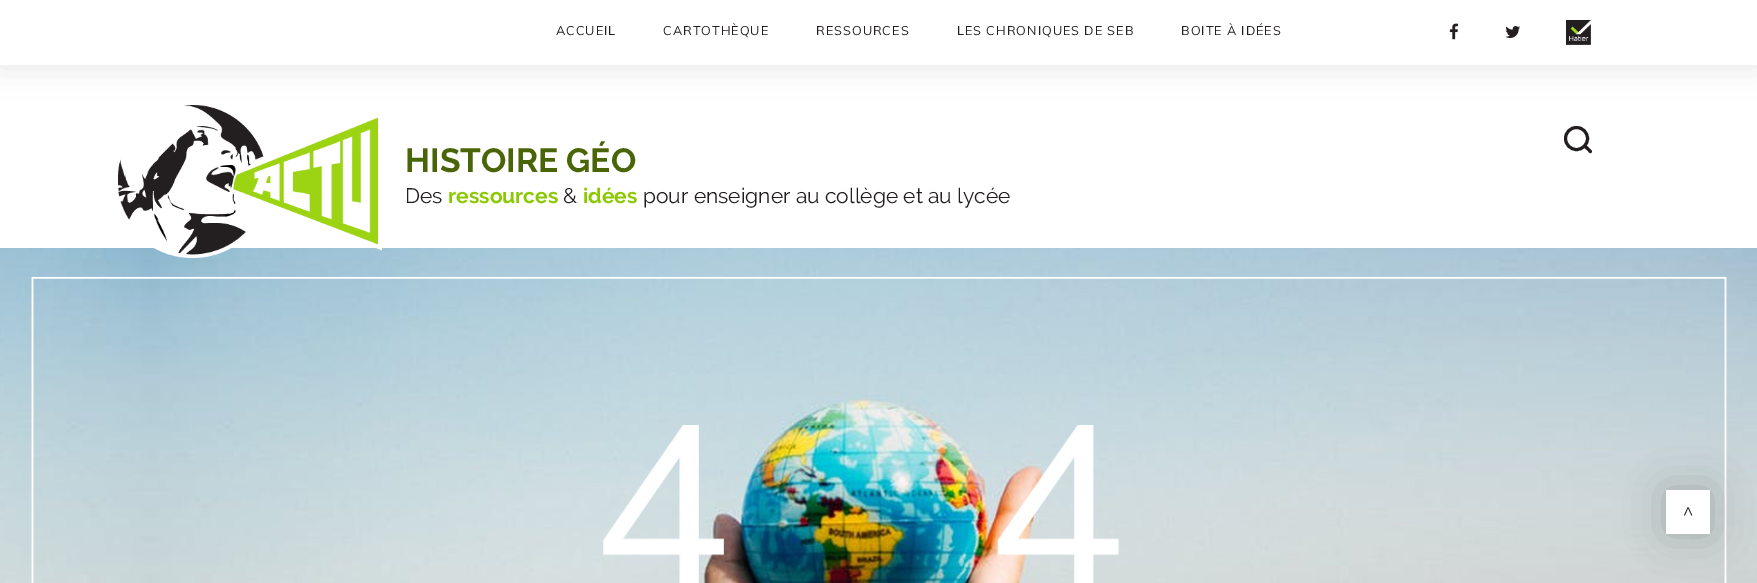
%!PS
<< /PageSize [1757 583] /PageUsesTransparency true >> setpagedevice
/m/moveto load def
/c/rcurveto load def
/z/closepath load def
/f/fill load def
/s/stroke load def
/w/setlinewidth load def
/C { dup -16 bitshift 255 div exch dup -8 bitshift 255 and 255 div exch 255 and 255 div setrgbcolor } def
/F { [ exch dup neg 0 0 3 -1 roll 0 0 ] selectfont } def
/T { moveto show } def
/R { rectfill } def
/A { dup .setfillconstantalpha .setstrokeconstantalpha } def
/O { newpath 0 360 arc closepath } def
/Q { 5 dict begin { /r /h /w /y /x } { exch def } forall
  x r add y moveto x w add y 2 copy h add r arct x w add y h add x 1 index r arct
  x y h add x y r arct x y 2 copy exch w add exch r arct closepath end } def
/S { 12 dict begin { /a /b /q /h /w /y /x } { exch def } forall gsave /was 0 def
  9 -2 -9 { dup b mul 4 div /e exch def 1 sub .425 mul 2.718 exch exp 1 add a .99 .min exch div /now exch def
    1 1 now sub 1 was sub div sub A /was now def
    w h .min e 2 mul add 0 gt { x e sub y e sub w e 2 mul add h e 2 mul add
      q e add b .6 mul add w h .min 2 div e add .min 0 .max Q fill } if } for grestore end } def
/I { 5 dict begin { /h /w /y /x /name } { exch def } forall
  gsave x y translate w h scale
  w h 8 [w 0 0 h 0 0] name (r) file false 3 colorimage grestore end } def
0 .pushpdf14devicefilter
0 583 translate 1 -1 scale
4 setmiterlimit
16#FFFFFF C
0 0 1757 583 R
(5.rgb) 0 248 1757 335 I
(4.rgb) 118 105 264 153 I
16#E5E5E5 C
0 2 1757 65 0 15 1 S
16#FFFFFF C
0 0 1757 65 R
/Muli-Regular 12.6 F
16#231F20 C
556 35 m 1 0 (ACCUEIL) ashow
663 35 m 1 0 (CARTOTHÈQUE) ashow
816 35 m 1 0 (RESSOURCES) ashow
957 35 m 1 0 (LES CHRONIQUES DE SEB) ashow
1181 35 m 1 0 (BOITE À IDÉES) ashow
(1.rgb) 1449 23 9 17 I
(2.rgb) 1505 26 15 12 I
(3.rgb) 1566 20 25 25 I
/Raleway-Bold 33.5 F
16#4A6508 C
(HISTOIRE GÉO) 405 172 T
/Raleway-Regular 21 F
16#231F20 C
(Des) 405 203 T
/Raleway-Bold 21 F
16#8AC900 C
(ressources) 448 203 T
/Raleway-Regular 21 F
16#231F20 C
(&) 563 203 T
/Raleway-Bold 21 F
16#8AC900 C
(idées) 583 203 T
/Raleway-Regular 21 F
16#231F20 C
(pour enseigner au collège et au lycée) 643 203 T
3 w
1576.5 138.5 11 O s
1584.5 145.5 m 1.5 -1.5 3.5 1.5 4.5 2.5 c 1 1 4 3 2.5 4.5 c -1.5 2 -3.5 -1.5 -4.5 -2.5 c -1 -.5 -4 -3 -2.5 -4.5 c z f
16#000000 C
1666 490 44 44 0 20 .2 S
16#FFFFFF C
1666 490 44 44 R
/Muli-Regular 17 F
16#231F20 C
(^) 1683 518 T
.poppdf14devicefilter showpage
